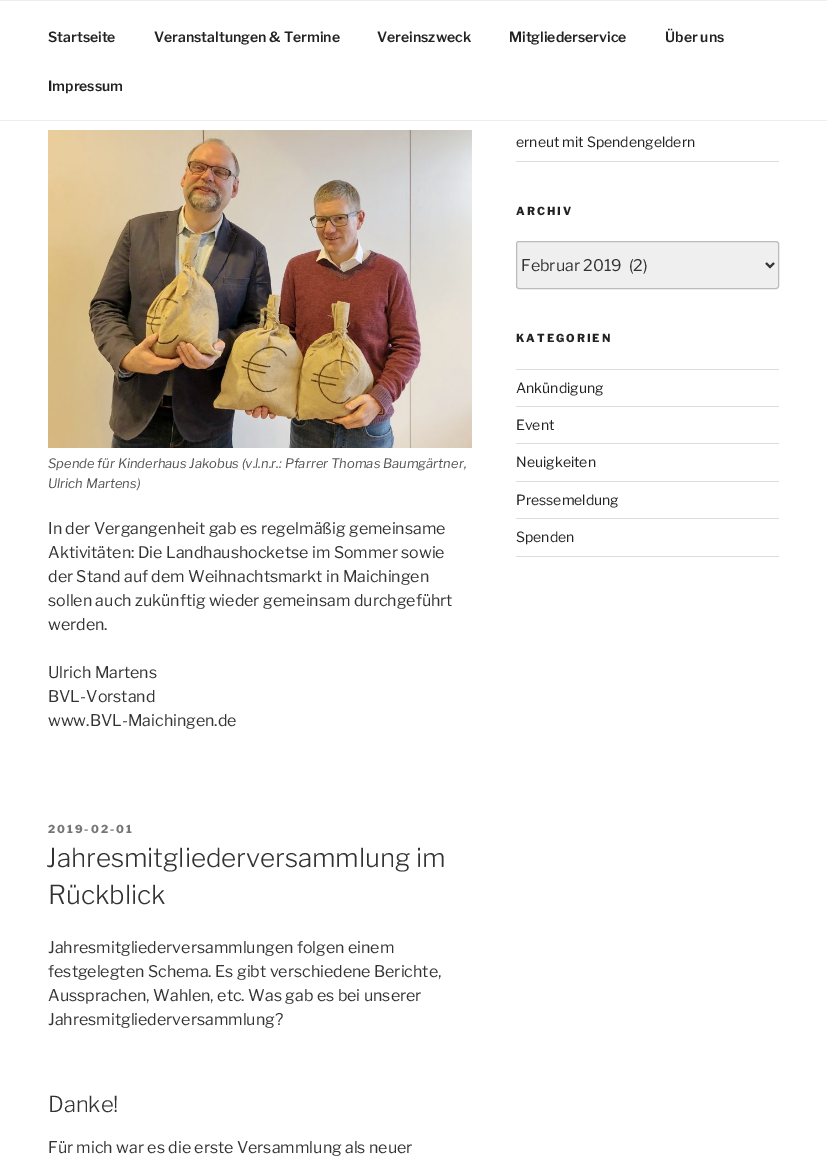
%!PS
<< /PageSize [827 1169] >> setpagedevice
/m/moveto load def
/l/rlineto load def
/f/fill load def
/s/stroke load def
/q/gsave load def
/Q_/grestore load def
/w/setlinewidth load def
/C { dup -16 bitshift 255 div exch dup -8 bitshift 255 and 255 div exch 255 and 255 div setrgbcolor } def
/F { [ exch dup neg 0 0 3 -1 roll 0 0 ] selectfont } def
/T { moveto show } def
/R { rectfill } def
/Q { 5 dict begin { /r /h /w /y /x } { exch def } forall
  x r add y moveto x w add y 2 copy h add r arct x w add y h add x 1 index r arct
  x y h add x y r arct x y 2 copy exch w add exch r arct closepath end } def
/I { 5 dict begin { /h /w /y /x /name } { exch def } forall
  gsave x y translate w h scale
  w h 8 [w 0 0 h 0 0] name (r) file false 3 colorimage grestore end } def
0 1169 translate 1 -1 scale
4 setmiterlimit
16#FFFFFF C
0 0 827 1169 R
16#EEEEEE C
0 0 827 1 R
0 120 827 1 R
/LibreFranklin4-Thin 14 F
16#222222 C
(Startseite) 48 42 T
(Veranstaltungen & Termine) 154 42 T
(Vereinszweck) 377 42 T
(Mitgliederservice) 509 42 T
(Über uns) 665 42 T
(Impressum) 48 91 T
16#DDDDDD C
516 161 263 1 R
/LibreFranklin-Thin 14 F
16#222222 C
(erneut mit Spendengeldern) 516 147 T
/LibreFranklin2-Thin 11 F
516 215 m 2 0 (ARCHIV) ashow
16#EFEFEF C
516.5 241.5 262 47 2.5 Q q f Q_
16#BBBBBB C
s
16#333333 C
2 w
766 263 m 4 4 l 4 -4 l s
/LibreFranklin-Thin 16 F
(Februar 2019  \(2\)) 521 271 T
/LibreFranklin2-Thin 11 F
16#222222 C
516 342 m 2 0 (KATEGORIEN) ashow
16#DDDDDD C
516 369 263 1 R
516 406 263 1 R
/LibreFranklin-Thin 14 F
16#222222 C
(Ankündigung) 516 393 T
16#DDDDDD C
516 443 263 1 R
16#222222 C
(Event) 516 430 T
16#DDDDDD C
516 481 263 1 R
16#222222 C
(Neuigkeiten) 516 467 T
16#DDDDDD C
516 518 263 1 R
16#222222 C
(Pressemeldung) 516 505 T
16#DDDDDD C
516 556 263 1 R
16#222222 C
(Spenden) 516 542 T
(1.rgb) 48 130 424 318 I
/LibreFranklin-ThinItalic 13 F
16#555555 C
(Spende für Kinderhaus Jakobus \(v.l.n.r.: Pfarrer Thomas Baumgärtner,) 48 468 T
(Ulrich Martens\)) 48 488 T
/LibreFranklin-Thin 16 F
16#333333 C
(In der Vergangenheit gab es regelmäßig gemeinsame) 48 534 T
(Aktivitäten: Die Landhaushocketse im Sommer sowie) 48 558 T
(der Stand auf dem Weihnachtsmarkt in Maichingen) 48 582 T
(sollen auch zukünftig wieder gemeinsam durchgeführt) 48 606 T
(werden.) 48 630 T
(Ulrich Martens) 48 678 T
(BVL-Vorstand) 48 702 T
(www.BVL-Maichingen.de) 48 726 T
/LibreFranklin2-Thin 11 F
16#767676 C
48 833 m 2 0 (2019-02-01) ashow
/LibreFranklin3-Thin 26 F
16#333333 C
(Jahresmitgliederversammlung im) 46 867 T
(Rückblick) 48 904 T
/LibreFranklin-Thin 16 F
(Jahresmitgliederversammlungen folgen einem) 48 953 T
(festgelegten Schema. Es gibt verschiedene Berichte,) 48 977 T
(Aussprachen, Wahlen, etc. Was gab es bei unserer) 48 1001 T
(Jahresmitgliederversammlung?) 48 1025 T
/LibreFranklin3-Thin 22 F
(Danke!) 48 1112 T
/LibreFranklin-Thin 16 F
(Für mich war es die erste Versammlung als neuer) 48 1153 T
showpage
